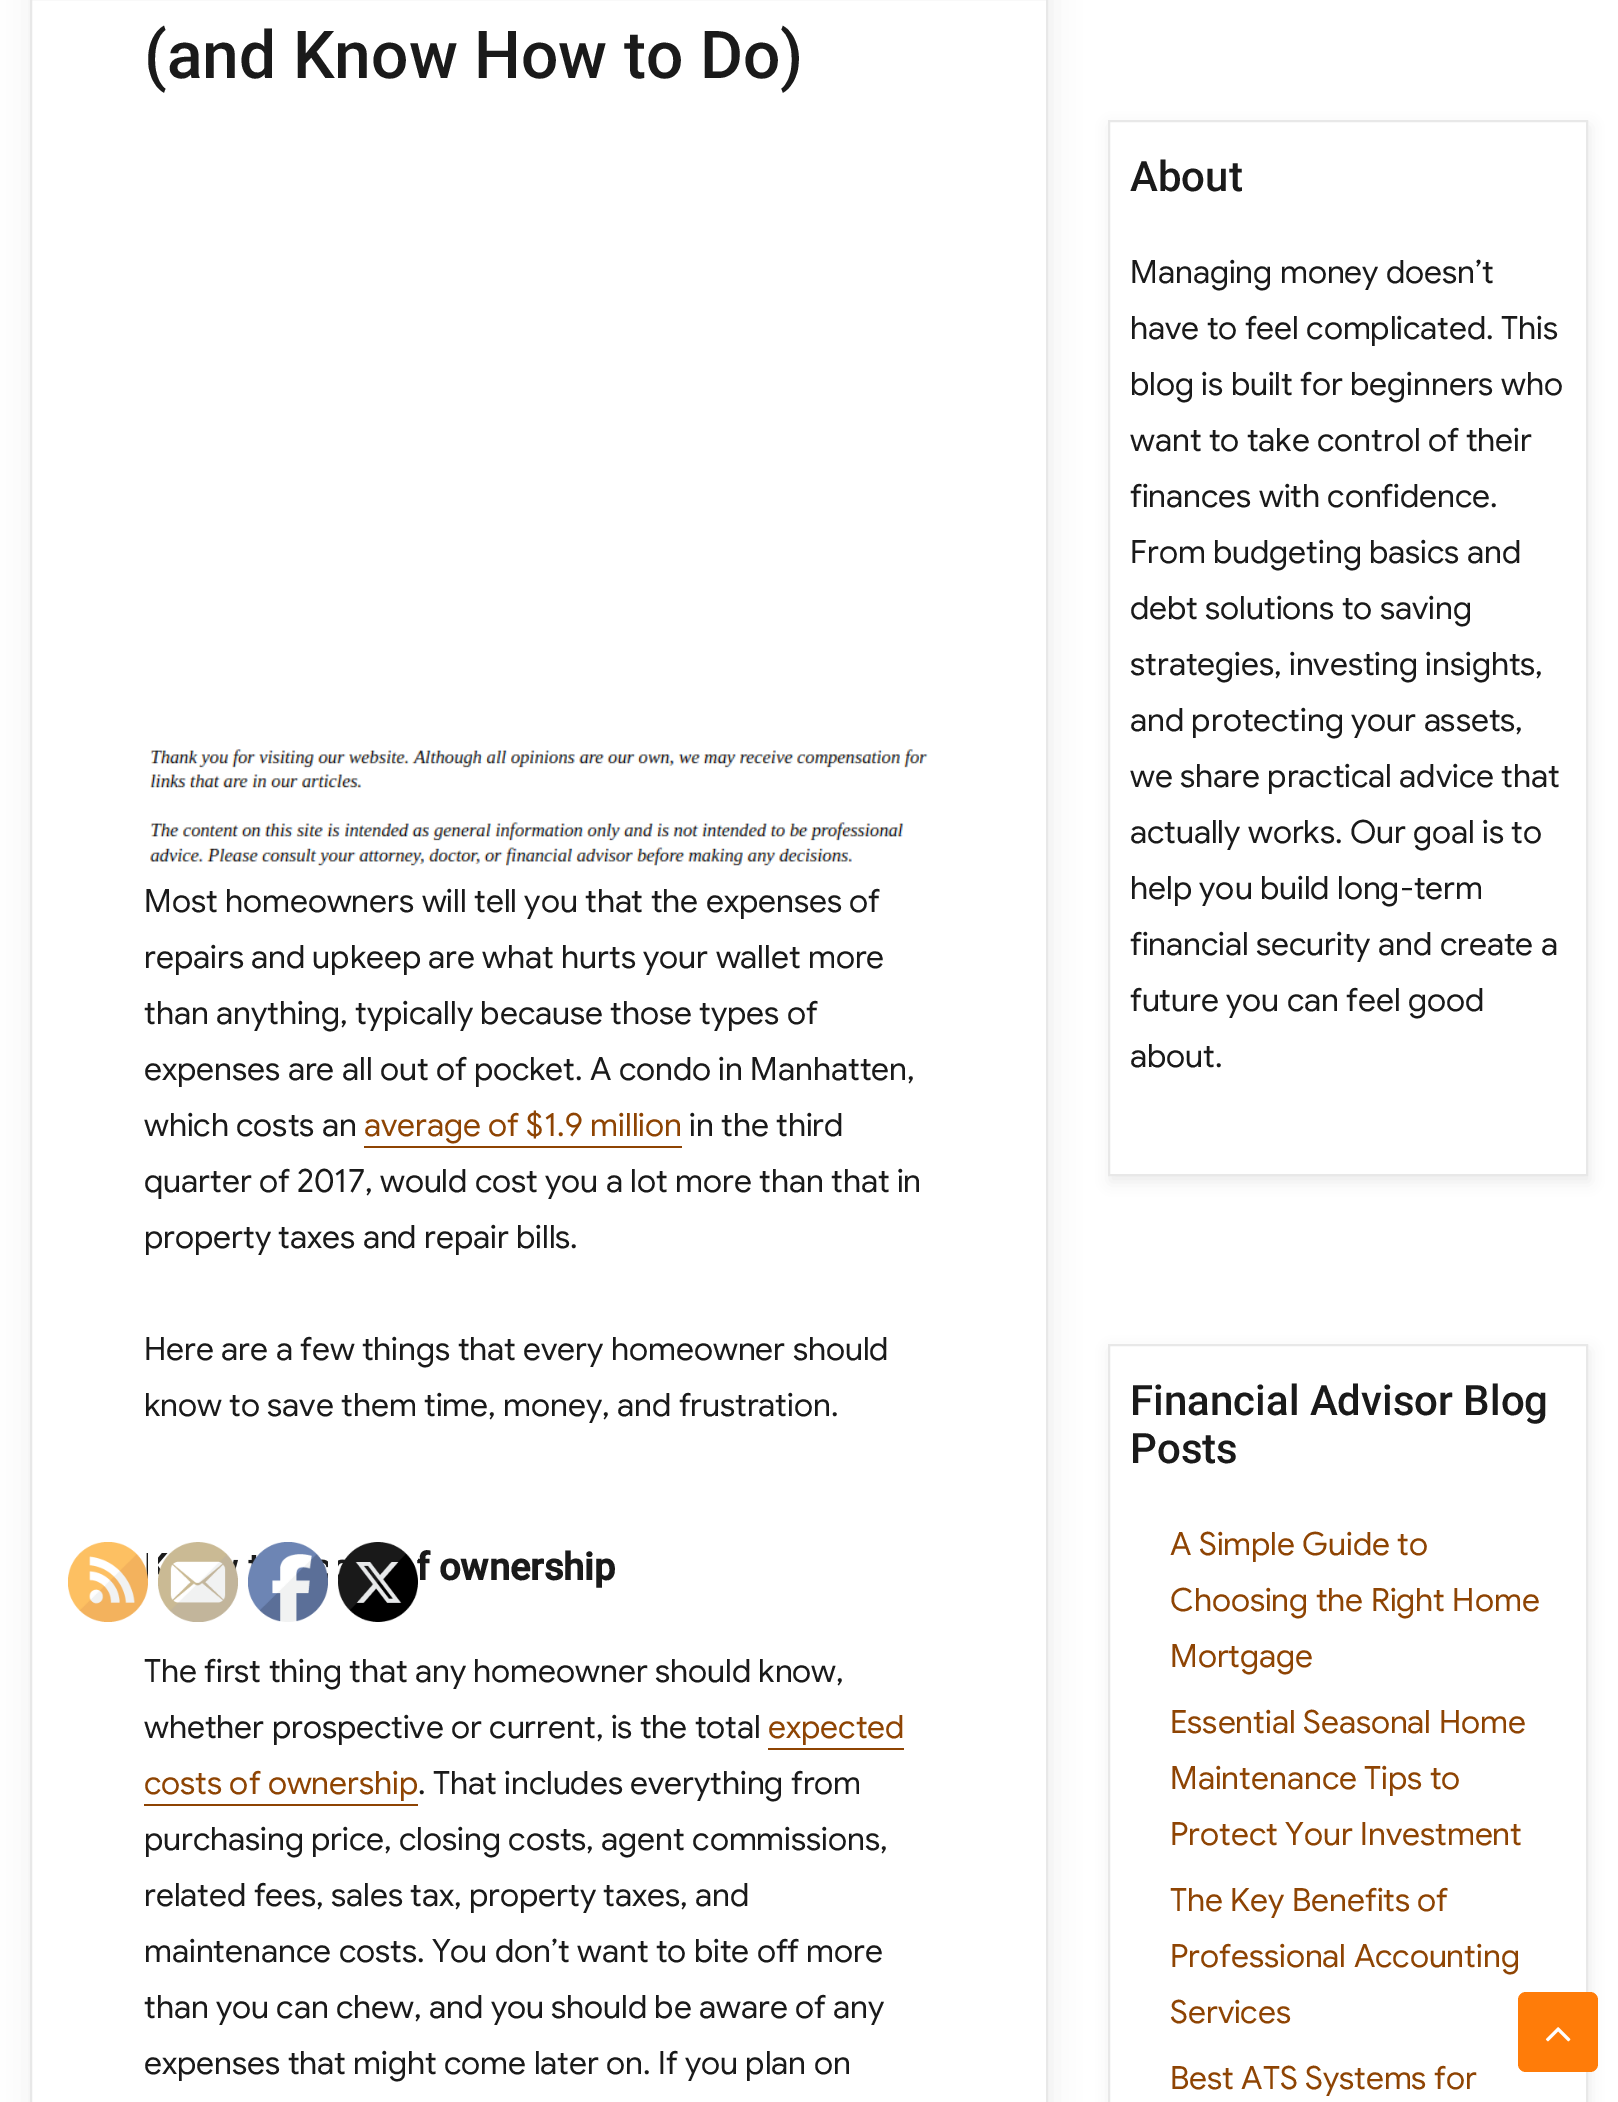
%!PS
<< /PageSize [1618 2102] /PageUsesTransparency true >> setpagedevice
/m/moveto load def
/l/rlineto load def
/c/rcurveto load def
/z/closepath load def
/f/fill load def
/q/gsave load def
/Q_/grestore load def
/w/setlinewidth load def
/C { dup -16 bitshift 255 div exch dup -8 bitshift 255 and 255 div exch 255 and 255 div setrgbcolor } def
/F { [ exch dup neg 0 0 3 -1 roll 0 0 ] selectfont } def
/T { moveto show } def
/R { rectfill } def
/A { dup .setfillconstantalpha .setstrokeconstantalpha } def
/Q { 5 dict begin { /r /h /w /y /x } { exch def } forall
  x r add y moveto x w add y 2 copy h add r arct x w add y h add x 1 index r arct
  x y h add x y r arct x y 2 copy exch w add exch r arct closepath end } def
/S { 12 dict begin { /a /b /q /h /w /y /x } { exch def } forall gsave /was 0 def
  9 -2 -9 { dup b mul 4 div /e exch def 1 sub .425 mul 2.718 exch exp 1 add a .99 .min exch div /now exch def
    1 1 now sub 1 was sub div sub A /was now def
    w h .min e 2 mul add 0 gt { x e sub y e sub w e 2 mul add h e 2 mul add
      q e add b .6 mul add w h .min 2 div e add .min 0 .max Q fill } if } for grestore end } def
/I { 5 dict begin { /h /w /y /x /name } { exch def } forall
  gsave x y translate w h scale
  w h 8 [w 0 0 h 0 0] name (r) file false 3 colorimage grestore end } def
0 .pushpdf14devicefilter
0 2102 translate 1 -1 scale
4 setmiterlimit
16#FFFFFF C
0 0 1618 2102 R
q
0 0 m 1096 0 l 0 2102 l -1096 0 l z 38 -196 m 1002 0 l 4.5 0 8 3.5 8 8 c 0 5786 l 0 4.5 -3.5 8 -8 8 c -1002 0 l -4.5 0 -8 -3.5 -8 -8 c 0 -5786 l 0 -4.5 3.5 -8 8 -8 c z eoclip newpath
16#ECECEC C
32 -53 1018 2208 8 15 1 S
Q_
16#E8E8E8 C
2 w
31 -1 1016 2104 rectstroke
/Roboto-Medium 66 F
16#1A1A1A C
(\(and Know How to Do\)) 144 78 T
(1.rgb) 150 749 778 117 I
/GoogleSans-Regular 32 F
(Most homeowners will tell you that the expenses of) 144 912 T
(repairs and upkeep are what hurts your wallet more) 144 968 T
(than anything, typically because those types of) 144 1024 T
(expenses are all out of pocket. A condo in Manhatten,) 144 1080 T
(which costs an) 144 1136 T
16#8E4403 C
(average of $1.9 million) 364 1136 T
364 1146 318 2 R
16#1A1A1A C
(in the third) 689 1136 T
(quarter of 2017, would cost you a lot more than that in) 144 1192 T
(property taxes and repair bills.) 144 1248 T
(Here are a few things that every homeowner should) 144 1360 T
(know to save them time, money, and frustration.) 144 1416 T
/Roboto-Bold 38 F
(f ownership) 416 1580 T
/GoogleSans-Regular 32 F
(The first thing that any homeowner should know,) 144 1682 T
(whether prospective or current, is the total) 144 1738 T
16#8E4403 C
(expected) 768 1738 T
768 1748 136 2 R
(costs of ownership) 144 1794 T
144 1804 274 2 R
16#1A1A1A C
(. That includes everything from) 418 1794 T
(purchasing price, closing costs, agent commissions,) 144 1850 T
(related fees, sales tax, property taxes, and) 144 1906 T
(maintenance costs. You don’t want to bite off more) 144 1962 T
(than you can chew, and you should be aware of any) 144 2018 T
(expenses that might come later on. If you plan on) 144 2074 T
q
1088 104 m 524 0 l 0 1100 l -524 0 l z 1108 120 m 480 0 l 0 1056 l -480 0 l z eoclip newpath
16#ECECEC C
1110 126 480 1056 0 7 1 S
Q_
16#E8E8E8 C
1109 121 478 1054 rectstroke
/Roboto-Medium 42 F
16#1A1A1A C
(About) 1130 191 T
/GoogleSans-Regular 32 F
(Managing money doesn’t) 1130 283 T
(have to feel complicated. This) 1130 339 T
(blog is built for beginners who) 1130 395 T
(want to take control of their) 1130 451 T
(finances with confidence.) 1130 507 T
(From budgeting basics and) 1130 563 T
(debt solutions to saving) 1130 619 T
(strategies, investing insights,) 1130 675 T
(and protecting your assets,) 1130 731 T
(we share practical advice that) 1130 787 T
(actually works. Our goal is to) 1130 843 T
(help you build long-term) 1130 899 T
(financial security and create a) 1130 955 T
(future you can feel good) 1130 1011 T
(about.) 1130 1067 T
q
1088 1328 m 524 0 l 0 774 l -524 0 l z 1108 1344 m 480 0 l 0 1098 l -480 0 l z eoclip newpath
16#ECECEC C
1110 1350 480 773 0 7 1 S
Q_
16#E8E8E8 C
1109 1345 478 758 rectstroke
/Roboto-Medium 42 F
16#1A1A1A C
(Financial Advisor Blog) 1130 1415 T
(Posts) 1130 1463 T
/GoogleSans-Regular 32 F
16#8E4403 C
(A Simple Guide to) 1170 1555 T
(Choosing the Right Home) 1170 1611 T
(Mortgage) 1170 1667 T
(Essential Seasonal Home) 1170 1733 T
(Maintenance Tips to) 1170 1789 T
(Protect Your Investment) 1170 1845 T
(The Key Benefits of) 1170 1911 T
(Professional Accounting) 1170 1967 T
(Services) 1170 2023 T
(Best ATS Systems for) 1170 2089 T
16#FF7C09 C
1518 1992 80 80 8 Q f
(2.rgb) 1545 2027 26 15 I
(3.rgb) 68 1542 80 80 I
(4.rgb) 158 1542 80 80 I
(5.rgb) 248 1542 80 80 I
(6.rgb) 338 1542 80 80 I
.poppdf14devicefilter showpage
